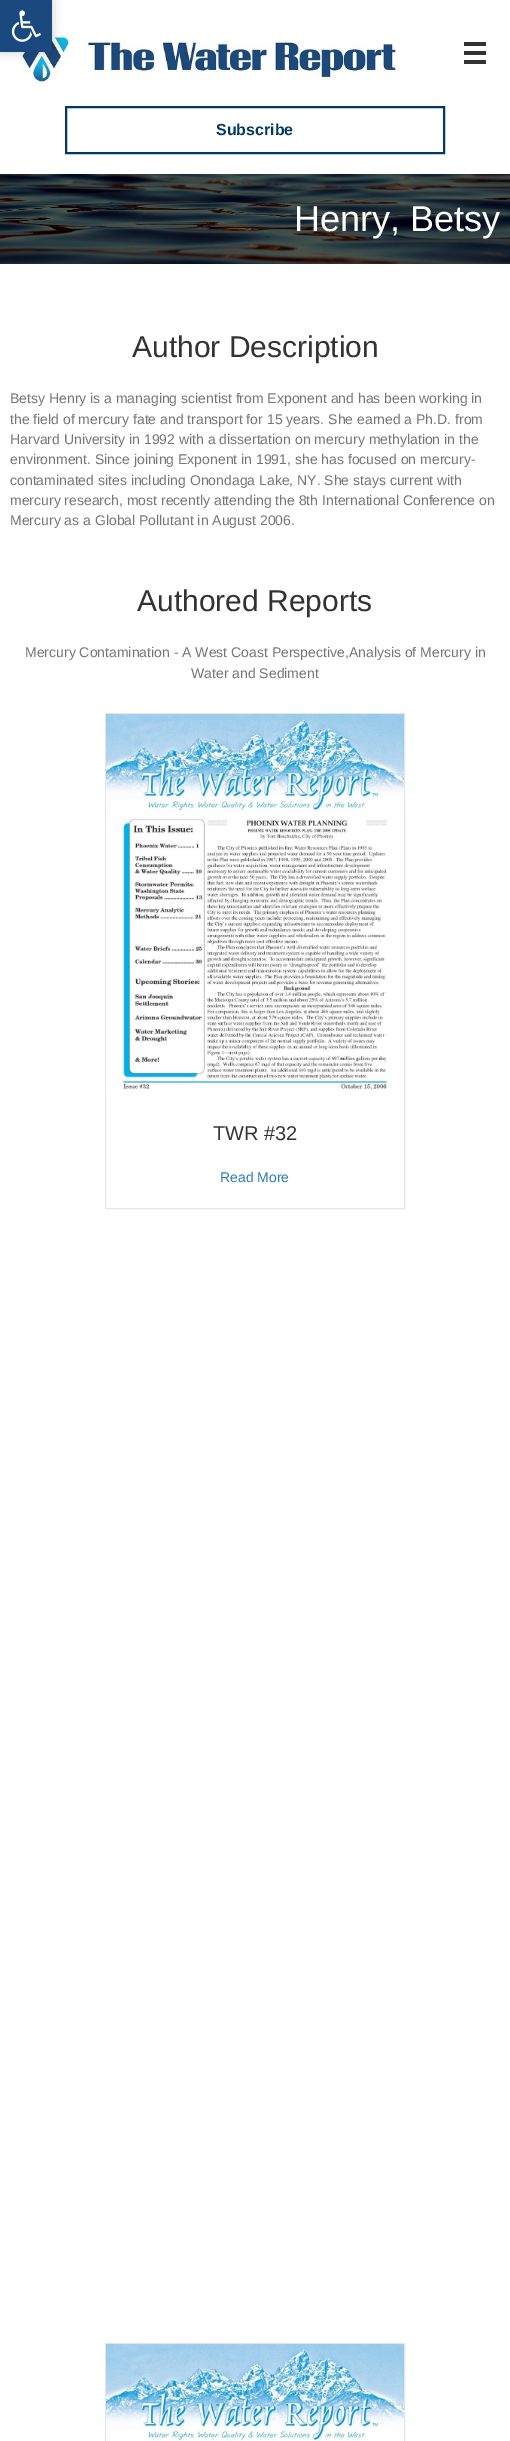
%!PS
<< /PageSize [510 2441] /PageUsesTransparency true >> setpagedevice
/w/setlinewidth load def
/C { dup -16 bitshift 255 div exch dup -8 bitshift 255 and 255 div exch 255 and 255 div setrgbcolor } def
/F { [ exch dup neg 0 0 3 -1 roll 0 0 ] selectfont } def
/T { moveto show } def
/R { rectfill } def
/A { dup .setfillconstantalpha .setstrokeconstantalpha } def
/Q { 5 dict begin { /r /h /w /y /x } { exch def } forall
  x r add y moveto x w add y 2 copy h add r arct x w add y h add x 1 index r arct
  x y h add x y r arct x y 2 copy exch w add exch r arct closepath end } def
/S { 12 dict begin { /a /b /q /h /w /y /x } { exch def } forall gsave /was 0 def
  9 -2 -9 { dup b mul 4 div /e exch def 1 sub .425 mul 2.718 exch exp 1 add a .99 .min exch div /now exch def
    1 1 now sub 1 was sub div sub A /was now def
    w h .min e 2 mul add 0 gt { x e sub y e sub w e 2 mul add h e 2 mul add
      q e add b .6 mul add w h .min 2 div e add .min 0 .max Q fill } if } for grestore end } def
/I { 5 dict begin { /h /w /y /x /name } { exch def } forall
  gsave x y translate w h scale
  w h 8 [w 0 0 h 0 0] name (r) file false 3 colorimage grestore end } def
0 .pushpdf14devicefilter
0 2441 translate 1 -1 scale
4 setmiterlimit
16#FFFFFF C
0 0 510 2441 R
(2.rgb) 10 24 388 60 I
16#000000 C
0 0 52 52 0 5 .2 S
16#1A497F C
0 0 52 52 R
(1.rgb) 11 10 30 32 I
16#333333 C
464 42 22 4 R
464 51 22 4 R
464 60 22 4 R
16#023866 C
2 w
66 107 378 46 rectstroke
/LiberationSans-Bold 16 F
(Subscribe) 216 135 T
(3.rgb) 0 174 510 90 I
/LiberationSans-Regular 36 F
16#FFFFFF C
(Henry, Betsy) 294 231 T
/LiberationSans-Regular 30 F
16#333333 C
(Author Description) 132 357 T
/LiberationSans-Regular 14 F
16#757575 C
(Betsy Henry is a managing scientist from Exponent and has been working in) 10 403 T
(the field of mercury fate and transport for 15 years. She earned a Ph.D. from) 10 424 T
(Harvard University in 1992 with a dissertation on mercury methylation in the) 10 444 T
(environment. Since joining Exponent in 1991, she has focused on mercury-) 10 464 T
(contaminated sites including Onondaga Lake, NY. She stays current with) 10 485 T
(mercury research, most recently attending the 8th International Conference on) 10 505 T
(Mercury as a Global Pollutant in August 2006.) 10 525 T
/LiberationSans-Regular 30 F
16#333333 C
(Authored Reports) 137 611 T
/LiberationSans-Regular 14 F
16#757575 C
(Mercury Contamination - A West Coast Perspective,Analysis of Mercury in) 25 657 T
(Water and Sediment) 191 678 T
16#E6E6E6 C
1 w
105.5 713.5 299 495 rectstroke
(4.rgb) 106 714 298 377 I
/LiberationSans-Regular 20 F
16#333333 C
(TWR #32) 213 1140 T
/LiberationSans-Regular 14 F
16#2B7BB9 C
(Read More) 220 1182 T
16#E6E6E6 C
105.5 2343.5 299 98 rectstroke
(5.rgb) 106 2344 298 97 I
.poppdf14devicefilter showpage
